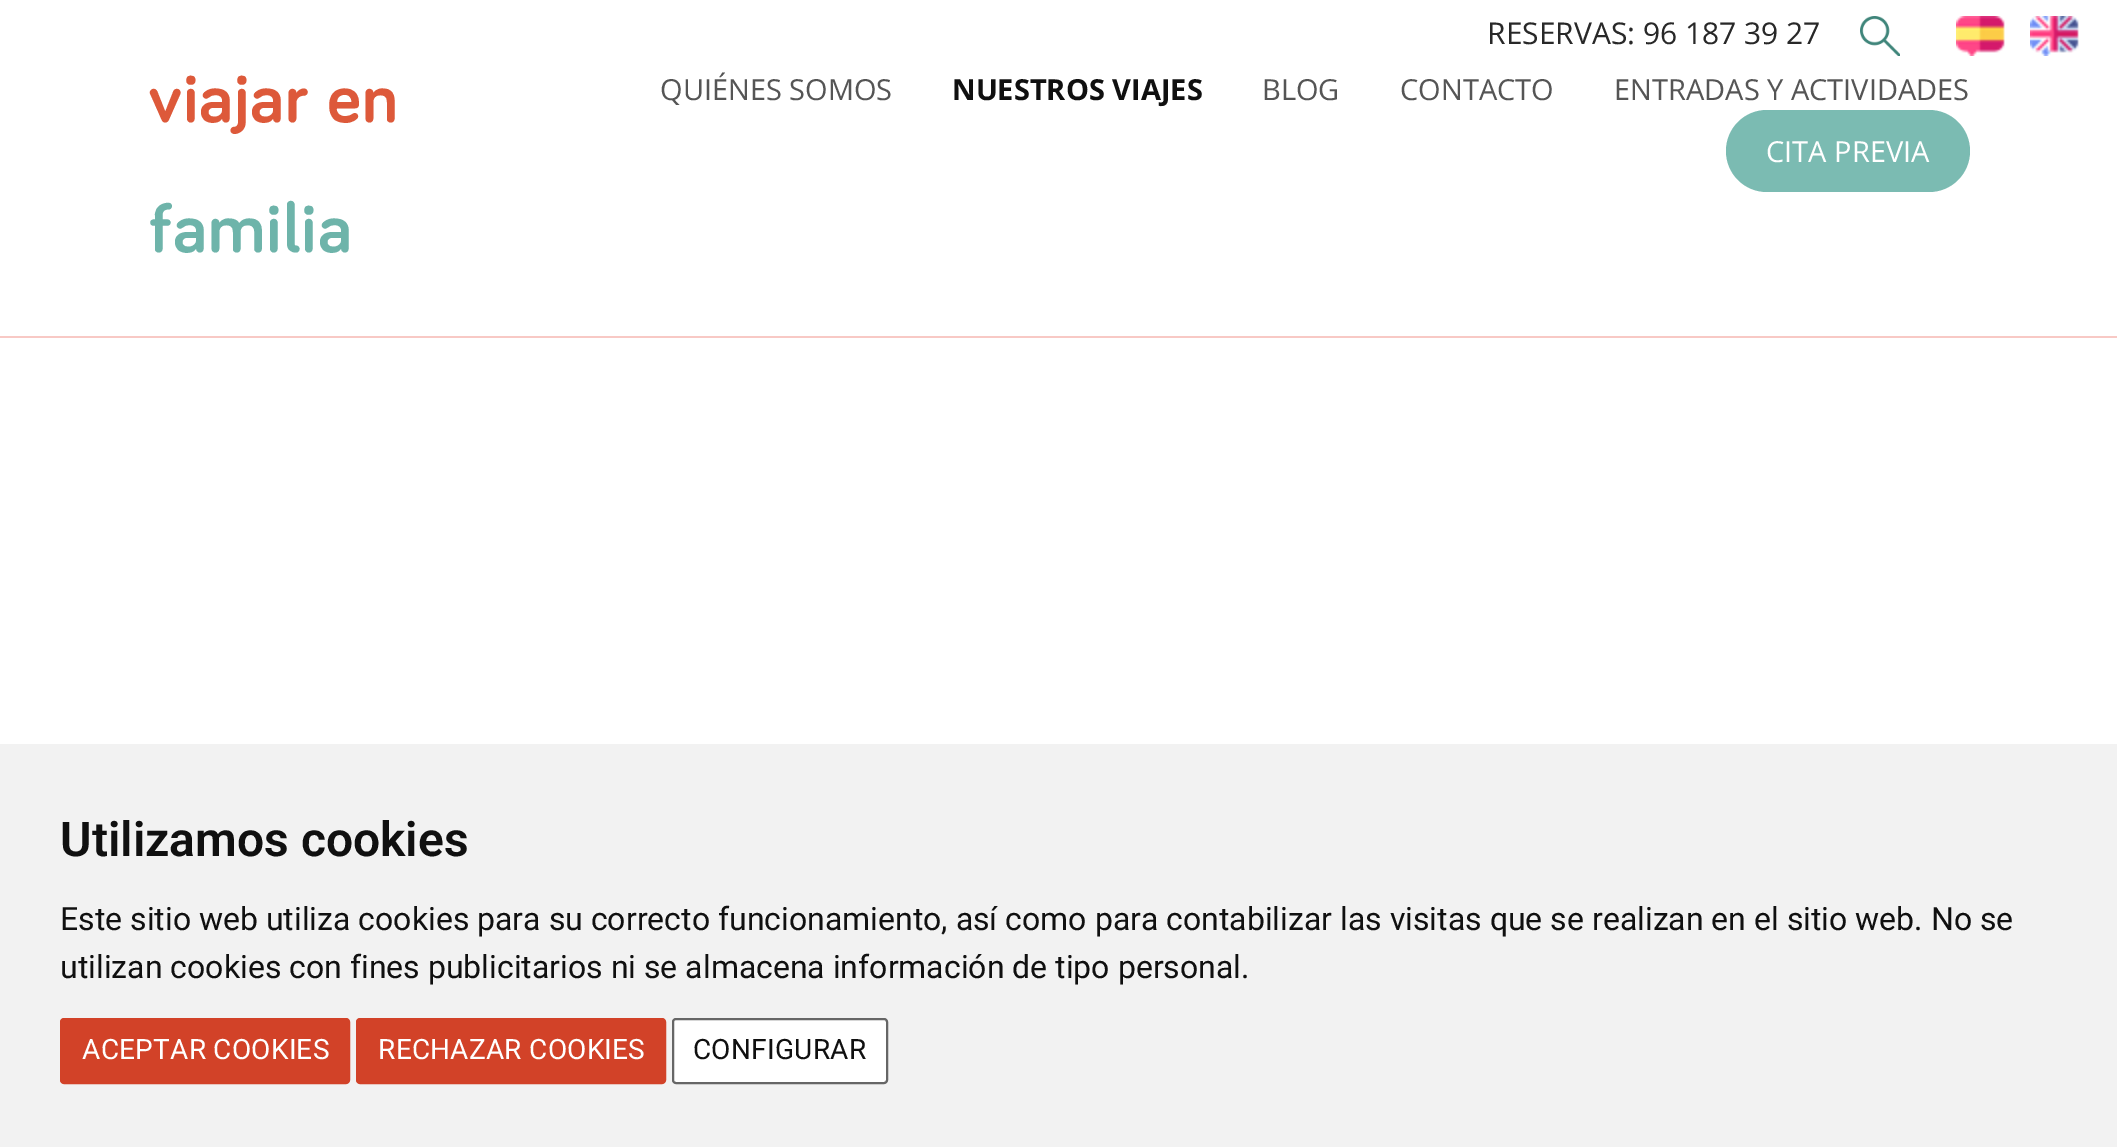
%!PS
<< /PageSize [2117 1147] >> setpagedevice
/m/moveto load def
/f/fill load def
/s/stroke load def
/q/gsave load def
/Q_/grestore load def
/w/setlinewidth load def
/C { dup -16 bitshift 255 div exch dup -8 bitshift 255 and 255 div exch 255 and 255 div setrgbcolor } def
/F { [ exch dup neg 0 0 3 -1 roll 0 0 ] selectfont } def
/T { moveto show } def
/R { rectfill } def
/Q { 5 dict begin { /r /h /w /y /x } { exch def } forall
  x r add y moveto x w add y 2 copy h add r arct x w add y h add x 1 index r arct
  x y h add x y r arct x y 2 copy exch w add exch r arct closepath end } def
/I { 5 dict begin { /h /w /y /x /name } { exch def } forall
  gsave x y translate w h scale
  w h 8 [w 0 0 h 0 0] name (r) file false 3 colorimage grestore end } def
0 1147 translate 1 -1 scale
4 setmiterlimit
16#FFFFFF C
0 0 2117 1147 R
16#F8C9C5 C
0 336 2117 2 R
/OpenSans-Regular 30 F
16#282828 C
(RESERVAS: 96 187 39 27) 1487 44 T
(1.rgb) 1860 16 40 40 I
(2.rgb) 1956 16 49 40 I
(3.rgb) 2030 16 49 40 I
/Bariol-Bold 72 F
16#DD593A C
149 122 m 1 0 (viajar en) ashow
16#6EB4AA C
149 252 m 1 0 (familia) ashow
/OpenSans-Regular 29 F
16#555555 C
(QUIÉNES SOMOS) 660 100 T
/OpenSans-Bold 29 F
16#101010 C
(NUESTROS VIAJES) 952 100 T
/OpenSans-Regular 29 F
16#555555 C
(BLOG) 1262 100 T
(CONTACTO) 1400 100 T
(ENTRADAS Y ACTIVIDADES) 1614 100 T
16#7BBBB2 C
1726 110 244 82 41 Q f
16#FFFFFF C
(CITA PREVIA) 1766 162 T
16#F2F2F2 C
0 744 2117 403 R
/Roboto-SemiBold 48 F
16#101010 C
(Utilizamos cookies) 60 856 T
/Roboto-Regular 32 F
(Este sitio web utiliza cookies para su correcto funcionamiento, así como para contabilizar las visitas que se realizan en el sitio web. No se) 60 930 T
(utilizan cookies con fines publicitarios ni se almacena información de tipo personal.) 60 978 T
16#D24228 C
61 1019 288 64 3 Q q f Q_
2 w
s
/Roboto-Regular 28 F
16#FFFFFF C
82 1059 m .25 0 (ACEPTAR COOKIES) ashow
16#D24228 C
357 1019 308 64 3 Q q f Q_
s
16#FFFFFF C
378 1059 m .25 0 (RECHAZAR COOKIES) ashow
673 1019 214 64 3 Q q f Q_
16#666666 C
s
16#101010 C
693 1059 m .25 0 (CONFIGURAR) ashow
showpage
